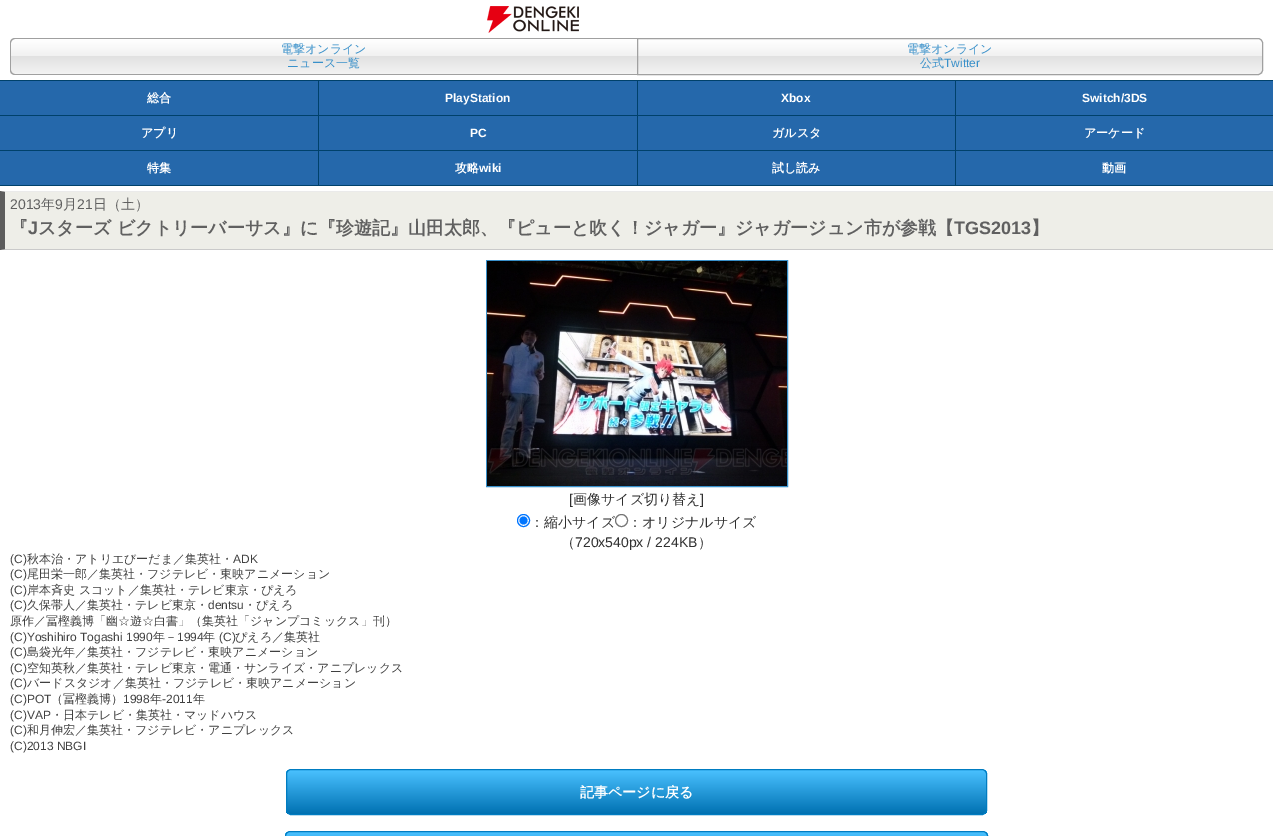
%!PS
<< /PageSize [1273 836] >> setpagedevice
/m/moveto load def
/l/rlineto load def
/c/rcurveto load def
/z/closepath load def
/f/fill load def
/s/stroke load def
/q/gsave load def
/Q_/grestore load def
/C { dup -16 bitshift 255 div exch dup -8 bitshift 255 and 255 div exch 255 and 255 div setrgbcolor } def
/F { [ exch dup neg 0 0 3 -1 roll 0 0 ] selectfont } def
/T { moveto show } def
/R { rectfill } def
/O { newpath 0 360 arc closepath } def
/Q { 5 dict begin { /r /h /w /y /x } { exch def } forall
  x r add y moveto x w add y 2 copy h add r arct x w add y h add x 1 index r arct
  x y h add x y r arct x y 2 copy exch w add exch r arct closepath end } def
/I { 5 dict begin { /h /w /y /x /name } { exch def } forall
  gsave x y translate w h scale
  w h 8 [w 0 0 h 0 0] name (r) file false 3 colorimage grestore end } def
0 836 translate 1 -1 scale
4 setmiterlimit
16#FFFFFF C
0 0 1273 836 R
(1.rgb) 487 6 92 27 I
q
15 38 m 622 0 l 0 37 l -622 0 l -3 0 -5 -2 -5 -5 c 0 -27 l 0 -3 2 -5 5 -5 c z clip newpath
q 10 39 m 627 0 l 0 35 l -627 0 l z clip newpath
<< /ShadingType 2 /ColorSpace /DeviceRGB /Coords [11 39 11 74] /Extend [true true] /Function << /FunctionType 3 /Domain [0 1] /Functions [<< /FunctionType 2 /Domain [0 1] /C0 [1 1 1] /C1 [.945 .945 .945] /N 1 >> << /FunctionType 2 /Domain [0 1] /C0 [.945 .945 .945] /C1 [.882 .882 .882] /N 1 >> << /FunctionType 2 /Domain [0 1] /C0 [.882 .882 .882] /C1 [.953 .953 .953] /N 1 >>] /Bounds [.49 .5] /Encode [0 1 0 1 0 1] >> >> shfill Q_
Q_
16#A0A0A0 C
15 38 m 622 0 l 0 37 l -622 0 l -3 0 -5 -2 -5 -5 c 0 -27 l 0 -3 2 -5 5 -5 c z 15 39 m 622 0 l 0 35 l -622 0 l -2 0 -4 -2 -4 -4 c 0 -27 l 0 -2 2 -4 4 -4 c z eofill
/WenQuanYiZenHei-Medium 12 F
16#3890CA C
(電撃オンライン) 281 53 T
(ニュース一覧) 287 67 T
q
637 38 m 621 0 l 3 0 5 2 5 5 c 0 27 l 0 3 -2 5 -5 5 c -621 0 l z clip newpath
q 638 39 m 625 0 l 0 35 l -625 0 l z clip newpath
<< /ShadingType 2 /ColorSpace /DeviceRGB /Coords [638 39 638 74] /Extend [true true] /Function << /FunctionType 3 /Domain [0 1] /Functions [<< /FunctionType 2 /Domain [0 1] /C0 [1 1 1] /C1 [.945 .945 .945] /N 1 >> << /FunctionType 2 /Domain [0 1] /C0 [.945 .945 .945] /C1 [.882 .882 .882] /N 1 >> << /FunctionType 2 /Domain [0 1] /C0 [.882 .882 .882] /C1 [.953 .953 .953] /N 1 >>] /Bounds [.49 .5] /Encode [0 1 0 1 0 1] >> >> shfill Q_
Q_
16#A0A0A0 C
637.5 38.5 m 620.5 0 l 2.5 0 4.5 2 4.5 4.5 c 0 27 l 0 2.5 -2 4.5 -4.5 4.5 c -620.5 0 l z s
16#3890CA C
(電撃オンライン) 907 53 T
(公式) 920 67 T
/LiberationSans-Regular 12 F
(Twitter) 944 67 T
16#2568AB C
0 81 1273 34 R
16#00416B C
0 80 1273 1 R
/WenQuanYiZenHei-Bold 12 F
16#FFFFFF C
(総合) 147 102 T
16#00416B C
318 81 1 34 R
/LiberationSans-Bold 12 F
16#FFFFFF C
(PlayStation) 445 102 T
16#00416B C
637 81 1 34 R
16#FFFFFF C
(Xbox) 781 102 T
16#00416B C
955 81 1 34 R
16#FFFFFF C
(Switch/3DS) 1082 102 T
16#2568AB C
0 116 1273 34 R
16#00416B C
0 115 1273 1 R
/WenQuanYiZenHei-Bold 12 F
16#FFFFFF C
(アプリ) 141 137 T
16#00416B C
318 116 1 34 R
/LiberationSans-Bold 12 F
16#FFFFFF C
(PC) 470 137 T
16#00416B C
637 116 1 34 R
/WenQuanYiZenHei-Bold 12 F
16#FFFFFF C
(ガルスタ) 772 137 T
16#00416B C
955 116 1 34 R
16#FFFFFF C
(アーケード) 1084 137 T
16#2568AB C
0 151 1273 34 R
16#00416B C
0 150 1273 1 R
0 185 1273 1 R
16#FFFFFF C
(特集) 147 172 T
16#00416B C
318 151 1 34 R
16#FFFFFF C
(攻略) 455 172 T
/LiberationSans-Bold 12 F
(wiki) 479 172 T
16#00416B C
637 151 1 34 R
/WenQuanYiZenHei-Bold 12 F
16#FFFFFF C
(試し読み) 772 172 T
16#00416B C
955 151 1 34 R
16#FFFFFF C
(動画) 1102 172 T
16#EEEEE8 C
0 191 1273 59 R
16#EAEAEA C
0 191 m 1273 0 l 0 1 l -1268 0 l z f
16#CACACA C
1273 250 m -1273 0 l 5 -1 l 1268 0 l z f
16#5D5D5D C
0 250 m 0 -59 l 5 1 l 0 57 l z f
/LiberationSans-Regular 14 F
16#606060 C
(2013) 10 209 T
/WenQuanYiZenHei-Medium 14 F
(年) 41 209 T
/LiberationSans-Regular 14 F
(9) 55 209 T
/WenQuanYiZenHei-Medium 14 F
(月) 63 209 T
/LiberationSans-Regular 14 F
(21) 77 209 T
/WenQuanYiZenHei-Medium 14 F
(日（土）) 93 209 T
/WenQuanYiZenHei-Bold 18 F
(『) 10 234 T
/LiberationSans-Bold 18 F
(J) 28 234 T
/WenQuanYiZenHei-Bold 18 F
(スターズ ビクトリーバーサス』に『珍遊記』山田太郎、『ピューと吹く！ジャガー』ジャガージュン市が参戦【) 38 234 T
/LiberationSans-Bold 18 F
(TGS2013) 954 234 T
/WenQuanYiZenHei-Bold 18 F
(】) 1031 234 T
16#3890CA C
486.5 260.5 301 226 rectstroke
(2.rgb) 487 261 300 225 I
/LiberationSans-Regular 14 F
16#303030 C
([) 569 504 T
/WenQuanYiZenHei-Medium 14 F
(画像サイズ切り替え) 573 504 T
/LiberationSans-Regular 14 F
(]) 700 504 T
16#0075FF C
523.5 520.5 6 O s
523.5 520.5 4 O f
/WenQuanYiZenHei-Medium 14 F
16#303030 C
(：縮小サイズ) 530 527 T
16#767676 C
621.5 520.5 6 O s
16#303030 C
(：オリジナルサイズ) 628 527 T
(（) 561 547 T
/LiberationSans-Regular 14 F
(720x540px / 224KB) 575 547 T
/WenQuanYiZenHei-Medium 14 F
(）) 698 547 T
/LiberationSans-Regular 12 F
16#404040 C
(\(C\)) 10 563 T
/WenQuanYiZenHei-Medium 12 F
(秋本治・アトリエびーだま／集英社・) 27 563 T
/LiberationSans-Regular 12 F
(ADK) 233 563 T
(\(C\)) 10 578 T
/WenQuanYiZenHei-Medium 12 F
(尾田栄一郎／集英社・フジテレビ・東映アニメーション) 27 578 T
/LiberationSans-Regular 12 F
(\(C\)) 10 594 T
/WenQuanYiZenHei-Medium 12 F
(岸本斉史 スコット／集英社・テレビ東京・ぴえろ) 27 594 T
/LiberationSans-Regular 12 F
(\(C\)) 10 609 T
/WenQuanYiZenHei-Medium 12 F
(久保帯人／集英社・テレビ東京・) 27 609 T
/LiberationSans-Regular 12 F
(dentsu) 208 609 T
/WenQuanYiZenHei-Medium 12 F
(・ぴえろ) 244 609 T
(原作／冨樫義博「幽☆遊☆白書」（集英社「ジャンプコミックス」刊）) 10 625 T
/LiberationSans-Regular 12 F
(\(C\)Yoshihiro Togashi 1990) 10 641 T
/WenQuanYiZenHei-Medium 12 F
(年－) 153 641 T
/LiberationSans-Regular 12 F
(1994) 177 641 T
/WenQuanYiZenHei-Medium 12 F
(年) 203 641 T
/LiberationSans-Regular 12 F
(\(C\)) 219 641 T
/WenQuanYiZenHei-Medium 12 F
(ぴえろ／集英社) 235 641 T
/LiberationSans-Regular 12 F
(\(C\)) 10 656 T
/WenQuanYiZenHei-Medium 12 F
(島袋光年／集英社・フジテレビ・東映アニメーション) 27 656 T
/LiberationSans-Regular 12 F
(\(C\)) 10 672 T
/WenQuanYiZenHei-Medium 12 F
(空知英秋／集英社・テレビ東京・電通・サンライズ・アニプレックス) 27 672 T
/LiberationSans-Regular 12 F
(\(C\)) 10 687 T
/WenQuanYiZenHei-Medium 12 F
(バードスタジオ／集英社・フジテレビ・東映アニメーション) 27 687 T
/LiberationSans-Regular 12 F
(\(C\)POT) 10 703 T
/WenQuanYiZenHei-Medium 12 F
(（冨樫義博）) 51 703 T
/LiberationSans-Regular 12 F
(1998) 123 703 T
/WenQuanYiZenHei-Medium 12 F
(年) 150 703 T
/LiberationSans-Regular 12 F
(-2011) 162 703 T
/WenQuanYiZenHei-Medium 12 F
(年) 193 703 T
/LiberationSans-Regular 12 F
(\(C\)VAP) 10 719 T
/WenQuanYiZenHei-Medium 12 F
(・日本テレビ・集英社・マッドハウス) 51 719 T
/LiberationSans-Regular 12 F
(\(C\)) 10 734 T
/WenQuanYiZenHei-Medium 12 F
(和月伸宏／集英社・フジテレビ・アニプレックス) 27 734 T
/LiberationSans-Regular 12 F
(\(C\)2013 NBGI) 10 750 T
q
286 769 701 46 5 Q clip newpath
q 286 770 m 701 0 l 0 44 l -701 0 l z clip newpath
<< /ShadingType 2 /ColorSpace /DeviceRGB /Coords [287 770 287 814] /Extend [true true] /Function << /FunctionType 2 /Domain [0 1] /C0 [.29 .757 1] /C1 [0 .443 .698] /N 1 >> >> shfill Q_
Q_
16#007CC1 C
286.5 769.5 700 45 4.5 Q s
/WenQuanYiZenHei-Bold 14 F
16#FFFFFF C
(記事ページに戻る) 580 797 T
q
285 831 703 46 5 Q clip newpath
q 285 832 m 703 0 l 0 4 l -703 0 l z clip newpath
<< /ShadingType 2 /ColorSpace /DeviceRGB /Coords [286 832 286 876] /Extend [true true] /Function << /FunctionType 2 /Domain [0 1] /C0 [.29 .757 1] /C1 [0 .443 .698] /N 1 >> >> shfill Q_
Q_
16#007CC1 C
285.5 831.5 702 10 4.5 Q s
showpage
